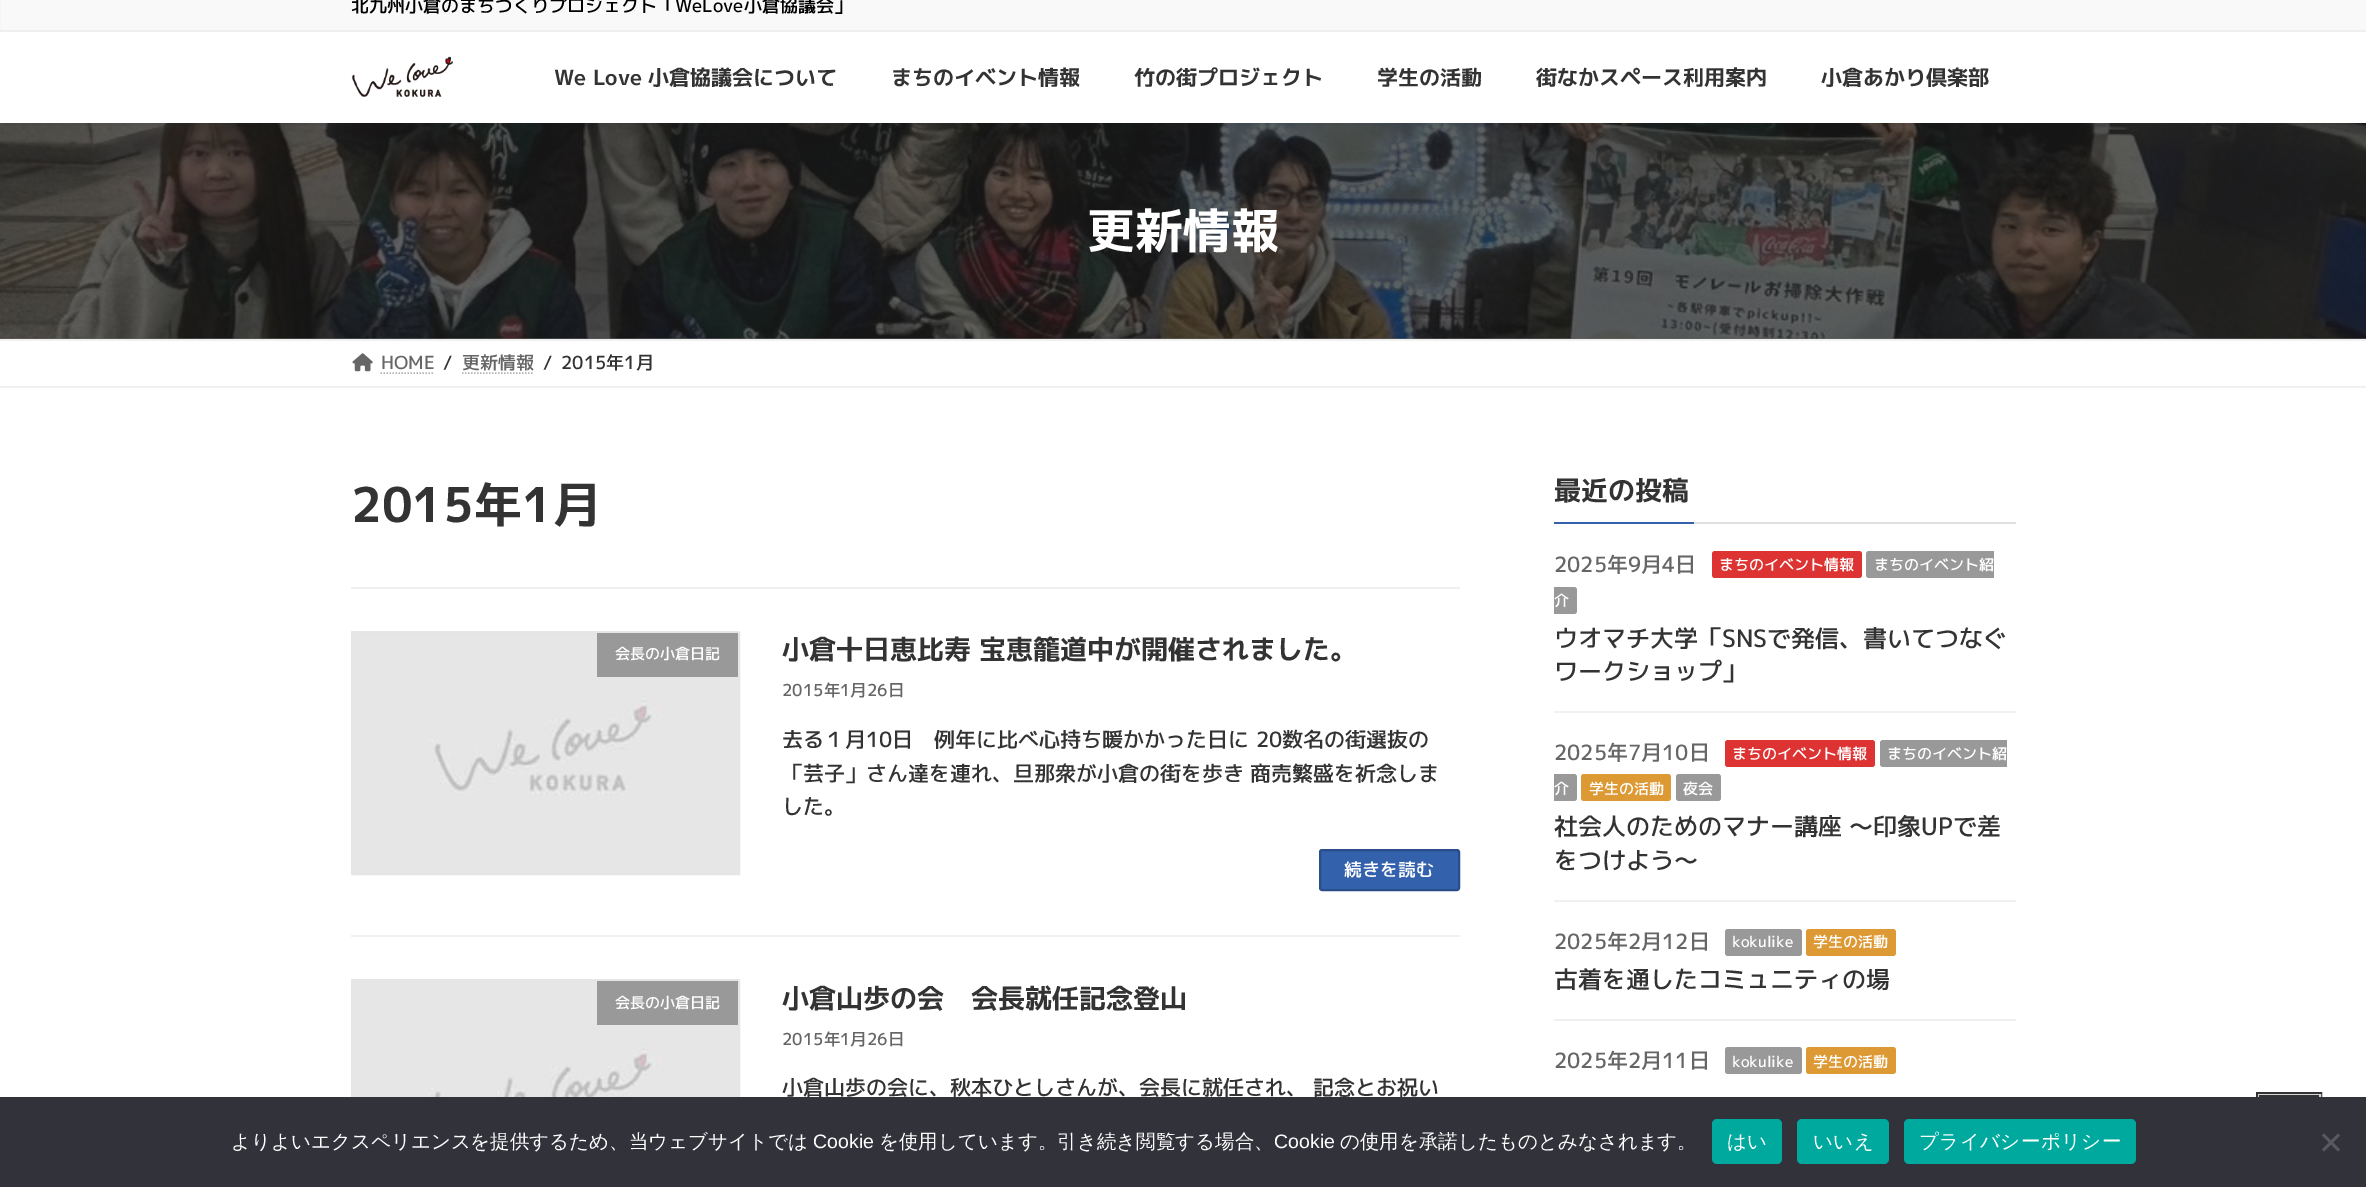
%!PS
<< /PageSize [2366 1187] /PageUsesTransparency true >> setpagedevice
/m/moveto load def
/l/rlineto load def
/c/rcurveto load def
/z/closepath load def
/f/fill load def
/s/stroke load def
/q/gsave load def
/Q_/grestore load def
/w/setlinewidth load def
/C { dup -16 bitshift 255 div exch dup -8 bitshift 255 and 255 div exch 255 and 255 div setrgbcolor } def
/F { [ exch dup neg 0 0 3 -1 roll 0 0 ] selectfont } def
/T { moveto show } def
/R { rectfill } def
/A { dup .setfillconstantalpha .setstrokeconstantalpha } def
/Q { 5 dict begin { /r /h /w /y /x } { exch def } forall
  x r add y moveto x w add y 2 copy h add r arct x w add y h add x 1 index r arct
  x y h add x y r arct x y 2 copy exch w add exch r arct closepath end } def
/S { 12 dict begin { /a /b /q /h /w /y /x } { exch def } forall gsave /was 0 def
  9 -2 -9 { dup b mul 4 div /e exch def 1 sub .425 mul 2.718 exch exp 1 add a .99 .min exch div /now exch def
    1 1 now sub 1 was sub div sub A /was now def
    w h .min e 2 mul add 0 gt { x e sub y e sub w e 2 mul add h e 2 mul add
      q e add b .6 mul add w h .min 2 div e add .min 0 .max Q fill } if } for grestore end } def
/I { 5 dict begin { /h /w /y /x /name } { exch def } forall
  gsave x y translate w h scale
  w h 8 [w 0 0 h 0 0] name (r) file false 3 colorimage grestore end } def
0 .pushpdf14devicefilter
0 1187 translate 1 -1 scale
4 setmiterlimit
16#FFFFFF C
0 0 2366 1187 R
16#626262 C
0 338 2366 1 R
(2.rgb) 0 123 2366 216 I
16#000000 C
0 -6 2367 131 0 2 .05 S
16#FFFFFF C
0 32 2366 91 R
16#F9F9F9 C
1 0 2365 30 R
16#EFEFEF C
0 30 2366 2 R
/MPLUS1p-Medium 18 F
16#000000 C
(北九州小倉のまちづくりプロジェクト「WeLove小倉協議会」) 351 12 T
(1.rgb) 351 56 102 41 I
/MPLUS1p-Bold 21 F
16#333333 C
(We Love 小倉協議会について) 554 85 T
(まちのイベント情報) 891 85 T
(竹の街プロジェクト) 1134 85 T
(学生の活動) 1377 85 T
(街なかスペース利用案内) 1536 85 T
(小倉あかり倶楽部) 1821 85 T
/MPLUS1p-Bold 48 F
16#FFFFFF C
(更新情報) 1087 248 T
16#F0F0F0 C
0 339 2366 2 R
0 386 2366 2 R
(3.rgb) 352 353 21 19 I
/MPLUS1p-Medium 18 F
16#666666 C
(HOME) 381 369 T
16#B3B3B3 C
1.5 w
[1.5 1.5] 0 setdash
380.5 373 m 54 0 l s
16#333333 C
(/) 443 369 T
16#666666 C
(更新情報) 462 369 T
16#B3B3B3 C
462 373 m 72 0 l s
16#333333 C
(/) 543 369 T
(2015年1月) 561 369 T
/MPLUS1p-Bold 48 F
(2015年1月) 351 522 T
16#F0F0F0 C
351 587 1109 2 R
351 935 1109 2 R
(4.rgb) 351 631 389 242 I
16#E5E5E5 C
2 w
[] 0 setdash
352 633 387 241 rectstroke
16#999999 C
597 633 141 44 R
/MPLUS1p-Medium 15 F
16#FFFFFF C
(会長の小倉日記) 615 659 T
/MPLUS1p-Bold 27 F
16#333333 C
(小倉十日恵比寿 宝恵籠道中が開催されました。) 782 659 T
/MPLUS1p-Medium 16.5 F
16#666666 C
(2015年1月26日) 782 696 T
/MPLUS1p-Medium 21 F
16#333333 C
(去る１月10日　例年に比べ心持ち暖かかった日に 20数名の街選抜の) 782 747 T
(「芸子」さん達を連れ、旦那衆が小倉の街を歩き 商売繁盛を祈念しま) 782 781 T
(した。) 782 814 T
16#3461AC C
1320 850 139 40 2 Q q f Q_
16#2A4E8A C
s
/MPLUS1p-Medium 18 F
16#FFFFFF C
(続きを読む) 1344 876 T
(5.rgb) 351 979 389 118 I
16#E5E5E5 C
352 981 387 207 rectstroke
16#999999 C
597 981 141 44 R
/MPLUS1p-Medium 15 F
16#FFFFFF C
(会長の小倉日記) 615 1008 T
/MPLUS1p-Bold 27 F
16#333333 C
(小倉山歩の会　会長就任記念登山) 782 1008 T
/MPLUS1p-Medium 16.5 F
16#666666 C
(2015年1月26日) 782 1045 T
/MPLUS1p-Medium 21 F
16#333333 C
(小倉山歩の会に、秋本ひとしさんが、会長に就任され、 記念とお祝い) 782 1095 T
16#E0E0E0 C
1694 522 322 2 R
/MPLUS1p-Bold 27 F
16#333333 C
(最近の投稿) 1554 500 T
16#3461AC C
1554 522 140 2 R
16#F0F0F0 C
1554 711 462 2 R
/MPLUS1p-Medium 21 F
16#666666 C
(2025年9月4日) 1554 572 T
16#DD3333 C
1712 551 150 27 3 Q f
/MPLUS1p-Medium 15 F
16#FFFFFF C
(まちのイベント情報) 1719 570 T
16#999999 C
1869 551 m 125 0 l 0 27 l -125 0 l -1.5 0 -3 -1.5 -3 -3 c 0 -21 l 0 -1.5 1.5 -3 3 -3 c z f
16#FFFFFF C
(まちのイベント紹) 1874 570 T
16#999999 C
1554 587 m 20 0 l 1.5 0 3 1.5 3 3 c 0 21 l 0 1.5 -1.5 3 -3 3 c -20 0 l z f
16#FFFFFF C
(介) 1554 606 T
/MPLUS1p-Medium 24 F
16#333333 C
(ウオマチ大学「SNSで発信、書いてつなぐ) 1554 647 T
(ワークショップ」) 1554 680 T
16#F0F0F0 C
1554 900 462 2 R
/MPLUS1p-Medium 21 F
16#666666 C
(2025年7月10日) 1554 760 T
16#DD3333 C
1725 740 150 27 3 Q f
/MPLUS1p-Medium 15 F
16#FFFFFF C
(まちのイベント情報) 1732 759 T
16#999999 C
1883 740 m 124 0 l 0 27 l -124 0 l -1.5 0 -3 -1.5 -3 -3 c 0 -21 l 0 -1.5 1.5 -3 3 -3 c z f
16#FFFFFF C
(まちのイベント紹) 1887 759 T
16#999999 C
1554 774 m 20 0 l 1.5 0 3 1.5 3 3 c 0 21 l 0 1.5 -1.5 3 -3 3 c -20 0 l z f
16#FFFFFF C
(介) 1554 794 T
16#DD9933 C
1581 774 90 27 3 Q f
16#FFFFFF C
(学生の活動) 1589 794 T
16#999999 C
1676 774 45 27 3 Q f
16#FFFFFF C
(夜会) 1683 794 T
/MPLUS1p-Medium 24 F
16#333333 C
(社会人のためのマナー講座 ～印象UPで差) 1554 835 T
(をつけよう～) 1554 869 T
16#F0F0F0 C
1554 1019 462 2 R
/MPLUS1p-Medium 21 F
16#666666 C
(2025年2月12日) 1554 949 T
16#999999 C
1725 929 77 27 3 Q f
/MPLUS1p-Medium 15 F
16#FFFFFF C
(kokulike) 1732 947 T
16#DD9933 C
1806 929 90 27 3 Q f
16#FFFFFF C
(学生の活動) 1813 947 T
/MPLUS1p-Medium 24 F
16#333333 C
(古着を通したコミュニティの場) 1554 988 T
/MPLUS1p-Medium 21 F
16#666666 C
(2025年2月11日) 1554 1068 T
16#999999 C
1725 1047 77 27 3 Q f
/MPLUS1p-Medium 15 F
16#FFFFFF C
(kokulike) 1732 1067 T
16#DD9933 C
1806 1047 90 27 3 Q f
16#FFFFFF C
(学生の活動) 1813 1067 T
16#333333 C
3 w
2257.5 1093.5 63 60 rectstroke
0.8 A
16#FFFFFF C
2 w
2259 1095 61 58 rectstroke
1 A
16#32323A C
0 1097 2366 90 R
/WenQuanYiZenHei-Medium 19.5 F
16#FFFFFF C
(よりよいエクスペリエンスを提供するため、当ウェブサイトでは) 231 1148 T
/LiberationSans-Regular 19.5 F
(Cookie) 813 1148 T
/WenQuanYiZenHei-Medium 19.5 F
(を使用しています。引き続き閲覧する場合、) 879 1148 T
/LiberationSans-Regular 19.5 F
(Cookie) 1274 1148 T
/WenQuanYiZenHei-Medium 19.5 F
(の使用を承諾したものとみなされます。) 1340 1148 T
16#00A99D C
1712 1119 70 45 5 Q f
16#FFFFFF C
1727 1148 m .4 0 (はい) ashow
16#00A99D C
1797 1119 92 45 5 Q f
16#FFFFFF C
1813 1148 m .4 0 (いいえ) ashow
16#00A99D C
1904 1119 232 45 5 Q f
16#FFFFFF C
1919 1148 m .4 0 (プライバシーポリシー) ashow
16#59595D C
2338 1133.5 m 2 2 l -16 16 l -2 -2 l z f
2322 1135.5 m 2 -2 l 16 16 l -2 2 l z f
16#333333 C
2259 1095 60 2 R
.poppdf14devicefilter showpage
